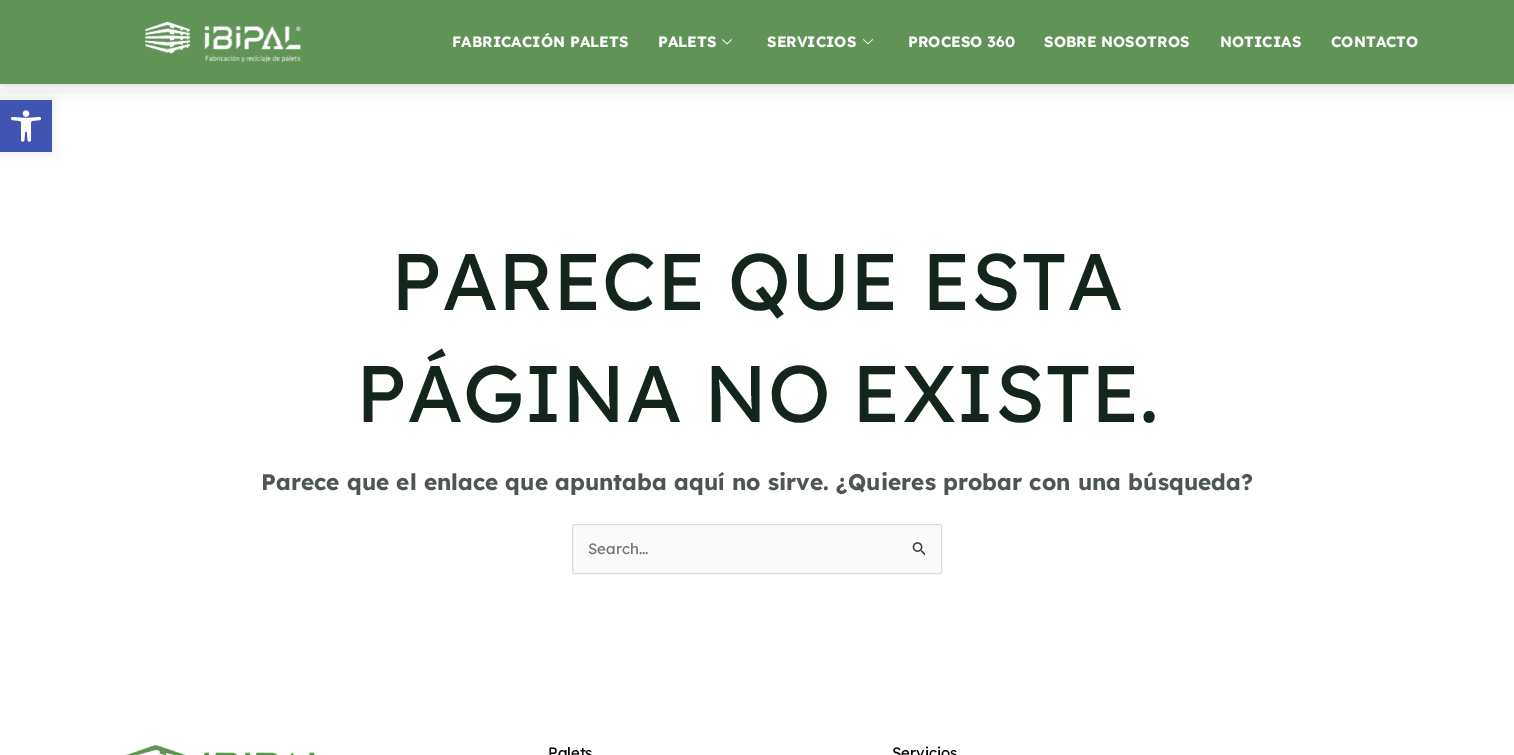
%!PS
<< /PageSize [1514 755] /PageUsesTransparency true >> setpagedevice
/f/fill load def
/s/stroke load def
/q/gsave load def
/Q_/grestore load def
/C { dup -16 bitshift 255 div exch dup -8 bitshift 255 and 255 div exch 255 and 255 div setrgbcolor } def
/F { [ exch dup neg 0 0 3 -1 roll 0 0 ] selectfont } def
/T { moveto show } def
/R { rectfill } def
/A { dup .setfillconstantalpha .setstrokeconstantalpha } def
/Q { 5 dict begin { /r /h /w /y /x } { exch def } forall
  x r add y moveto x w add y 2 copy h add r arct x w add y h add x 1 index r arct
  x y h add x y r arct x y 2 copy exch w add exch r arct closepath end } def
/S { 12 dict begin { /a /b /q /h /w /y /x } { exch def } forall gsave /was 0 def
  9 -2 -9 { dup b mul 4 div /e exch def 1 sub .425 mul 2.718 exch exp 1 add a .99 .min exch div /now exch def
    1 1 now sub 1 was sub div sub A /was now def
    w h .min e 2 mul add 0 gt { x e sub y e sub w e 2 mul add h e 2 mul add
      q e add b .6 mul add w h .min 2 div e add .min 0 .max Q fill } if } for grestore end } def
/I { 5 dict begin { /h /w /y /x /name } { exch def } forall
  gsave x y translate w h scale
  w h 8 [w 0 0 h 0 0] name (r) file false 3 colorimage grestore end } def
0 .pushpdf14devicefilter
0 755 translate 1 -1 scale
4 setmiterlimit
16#FFFFFF C
0 0 1514 755 R
16#000000 C
0 100 52 52 0 5 .1 S
0 0 1514 84 0 12 .15 S
16#4054B2 C
0 100 52 52 R
(1.rgb) 11 110 30 32 I
16#5F9456 C
0 0 1514 84 R
(2.rgb) 145 21 157 42 I
/Lexend-Bold 15 F
16#FFFFFF C
(FABRICACIÓN PALETS) 452 47 T
(PALETS) 658 47 T
(3.rgb) 722 39 10 6 I
(SERVICIOS) 767 47 T
(3.rgb) 863 39 10 6 I
(PROCESO 360) 908 47 T
(SOBRE NOSOTROS) 1044 47 T
(NOTICIAS) 1220 47 T
(CONTACTO) 1331 47 T
/Lexend-Regular 80 F
16#14261C C
(PARECE QUE ESTA) 391 310 T
(PÁGINA NO EXISTE.) 356 422 T
/Lexend-Bold 22.5 F
16#4E5652 C
(Parece que el enlace que apuntaba aquí no sirve. ¿Quieres probar con una búsqueda?) 261 490 T
16#FAFAFA C
572.5 524.5 369 49 1.5 Q q f Q_
16#DDDDDD C
s
/Lexend-Regular 15 F
16#757575 C
(Search...) 588 554 T
(4.rgb) 912 542 13 14 I
(5.rgb) 126 745 189 10 I
16#000000 C
(Palets) 548 758 T
(Servicios) 892 758 T
.poppdf14devicefilter showpage
